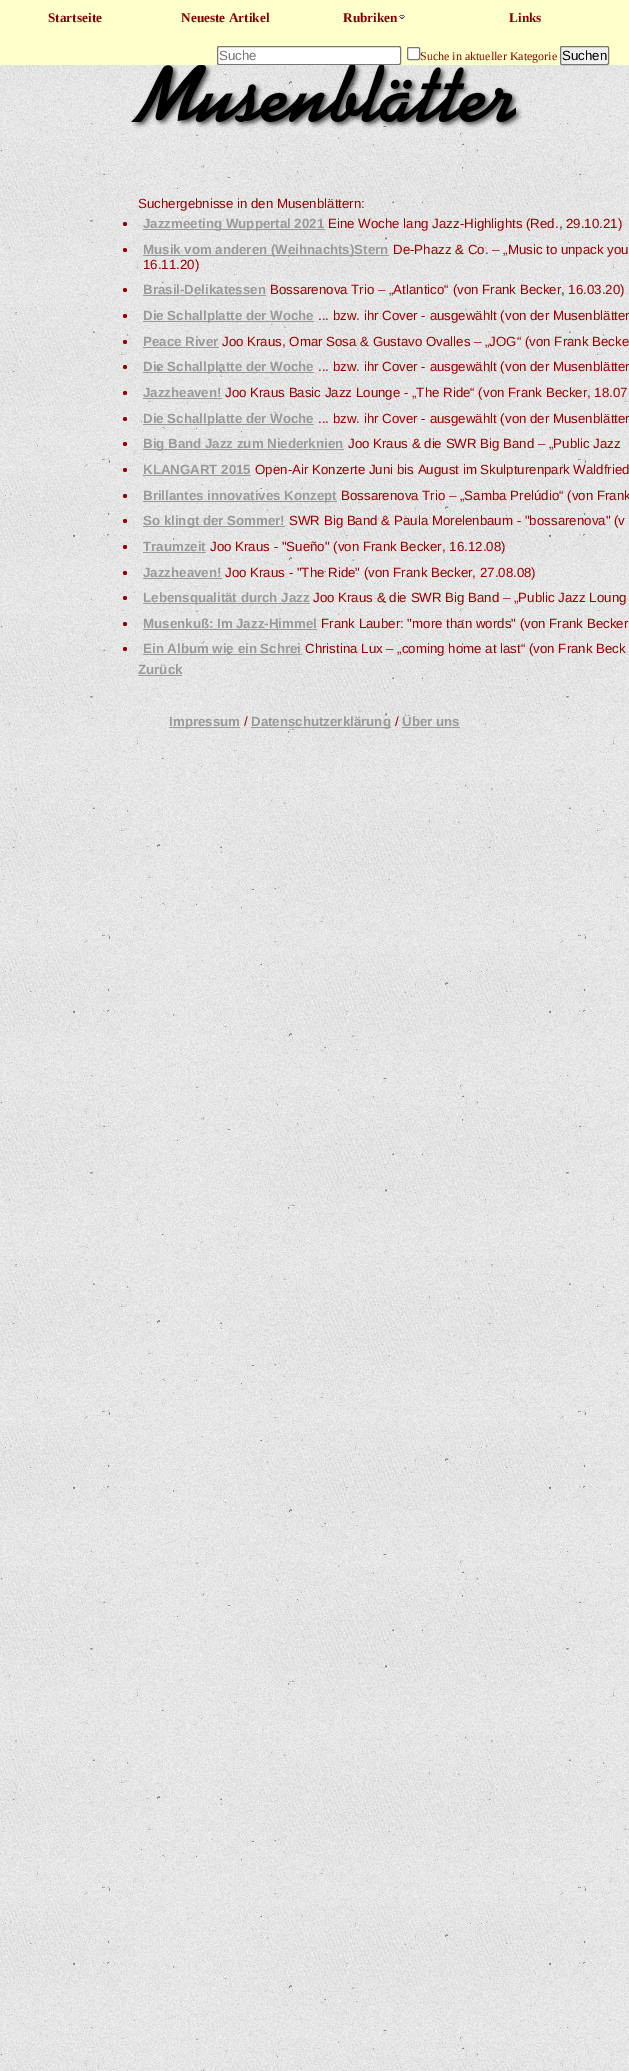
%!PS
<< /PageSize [629 2071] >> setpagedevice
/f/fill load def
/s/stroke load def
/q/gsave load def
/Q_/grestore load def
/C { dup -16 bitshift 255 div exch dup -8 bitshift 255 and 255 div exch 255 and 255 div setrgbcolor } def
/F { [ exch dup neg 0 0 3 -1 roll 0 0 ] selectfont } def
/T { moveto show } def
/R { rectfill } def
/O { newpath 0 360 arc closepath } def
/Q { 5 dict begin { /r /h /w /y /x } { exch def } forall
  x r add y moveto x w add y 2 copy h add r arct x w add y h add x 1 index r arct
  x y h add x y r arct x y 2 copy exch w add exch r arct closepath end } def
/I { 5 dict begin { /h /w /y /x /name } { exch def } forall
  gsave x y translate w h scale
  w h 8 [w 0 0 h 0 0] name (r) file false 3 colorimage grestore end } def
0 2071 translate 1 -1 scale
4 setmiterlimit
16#FFFFFF C
0 0 629 2071 R
(1.rgb) 0 65 629 2006 I
16#FFFFCC C
0 0 629 65 R
/LiberationSerif-Bold 13.3 F
16#800000 C
(Startseite) 48 22 T
(Neueste Artikel) 181 22 T
(Rubriken) 343 22 T
(2.rgb) 399 15 6 4 I
(Links) 509 22 T
16#FFFFFF C
217.5 46.5 183 18 1.5 Q q f Q_
16#767676 C
s
/LiberationSans-Regular 13.3 F
16#757575 C
(Suche) 219 60 T
16#FFFFFF C
407.5 47.5 12 12 1.5 Q q f Q_
16#767676 C
s
/LiberationSerif-Regular 12 F
16#990000 C
(Suche in aktueller Kategorie) 420 60 T
16#EFEFEF C
560.5 46.5 48 18 1.5 Q q f Q_
16#767676 C
s
/LiberationSans-Regular 13.3 F
16#000000 C
(Suchen) 562 60 T
(3.rgb) 131 65 391 64 I
16#990000 C
(Suchergebnisse in den Musenblättern:) 138 208 T
125 224 2 O f
16#999999 C
143 229 182 1 R
/LiberationSans-Bold 13.3 F
(Jazzmeeting Wuppertal 2021) 143 228 T
/LiberationSans-Regular 13.3 F
16#990000 C
(Eine Woche lang Jazz-Highlights \(Red., 29.10.21\)) 328 228 T
125 250 2 O f
16#999999 C
143 255 246 1 R
/LiberationSans-Bold 13.3 F
(Musik vom anderen \(Weihnachts\)Stern) 143 254 T
/LiberationSans-Regular 13.3 F
16#990000 C
(De-Phazz & Co. – „Music to unpack you) 393 254 T
(16.11.20\)) 143 269 T
125 290 2 O f
/LiberationSans-Bold 13.3 F
16#999999 C
(Brasil-Delikatessen) 143 294 T
143 295 123 1 R
/LiberationSans-Regular 13.3 F
16#990000 C
(Bossarenova Trio – „Atlantico“ \(von Frank Becker, 16.03.20\)) 270 294 T
125 316 2 O f
16#999999 C
143 321 171 1 R
/LiberationSans-Bold 13.3 F
(Die Schallplatte der Woche) 143 320 T
/LiberationSans-Regular 13.3 F
16#990000 C
(... bzw. ihr Cover - ausgewählt \(von der Musenblätter) 318 320 T
125 342 2 O f
/LiberationSans-Bold 13.3 F
16#999999 C
(Peace River) 143 346 T
143 347 76 1 R
/LiberationSans-Regular 13.3 F
16#990000 C
(Joo Kraus, Omar Sosa & Gustavo Ovalles – „JOG“ \(von Frank Becke) 222 346 T
125 367 2 O f
16#999999 C
143 372 171 1 R
/LiberationSans-Bold 13.3 F
(Die Schallplatte der Woche) 143 371 T
/LiberationSans-Regular 13.3 F
16#990000 C
(... bzw. ihr Cover - ausgewählt \(von der Musenblätter) 318 371 T
125 393 2 O f
/LiberationSans-Bold 13.3 F
16#999999 C
(Jazzheaven!) 143 397 T
143 398 79 1 R
/LiberationSans-Regular 13.3 F
16#990000 C
(Joo Kraus Basic Jazz Lounge - „The Ride“ \(von Frank Becker, 18.07) 225 397 T
125 419 2 O f
16#999999 C
143 424 171 1 R
/LiberationSans-Bold 13.3 F
(Die Schallplatte der Woche) 143 423 T
/LiberationSans-Regular 13.3 F
16#990000 C
(... bzw. ihr Cover - ausgewählt \(von der Musenblätter) 318 423 T
125 444 2 O f
16#999999 C
143 449 201 1 R
/LiberationSans-Bold 13.3 F
(Big Band Jazz zum Niederknien) 143 448 T
/LiberationSans-Regular 13.3 F
16#990000 C
(Joo Kraus & die SWR Big Band – „Public Jazz) 348 448 T
125 470 2 O f
/LiberationSans-Bold 13.3 F
16#999999 C
(KLANGART 2015) 143 474 T
143 475 108 1 R
/LiberationSans-Regular 13.3 F
16#990000 C
(Open-Air Konzerte Juni bis August im Skulpturenpark Waldfried) 255 474 T
125 496 2 O f
16#999999 C
143 501 194 1 R
/LiberationSans-Bold 13.3 F
(Brillantes innovatives Konzept) 143 500 T
/LiberationSans-Regular 13.3 F
16#990000 C
(Bossarenova Trio – „Samba Prelúdio“ \(von Frank) 341 500 T
125 521 2 O f
16#999999 C
143 526 142 1 R
/LiberationSans-Bold 13.3 F
(So klingt der Sommer!) 143 525 T
/LiberationSans-Regular 13.3 F
16#990000 C
(SWR Big Band & Paula Morelenbaum - "bossarenova" \(v) 289 525 T
125 547 2 O f
/LiberationSans-Bold 13.3 F
16#999999 C
(Traumzeit) 143 551 T
143 552 63 1 R
/LiberationSans-Regular 13.3 F
16#990000 C
(Joo Kraus - "Sueño" \(von Frank Becker, 16.12.08\)) 210 551 T
125 573 2 O f
/LiberationSans-Bold 13.3 F
16#999999 C
(Jazzheaven!) 143 577 T
143 578 79 1 R
/LiberationSans-Regular 13.3 F
16#990000 C
(Joo Kraus - "The Ride" \(von Frank Becker, 27.08.08\)) 225 577 T
125 598 2 O f
16#999999 C
143 603 167 1 R
/LiberationSans-Bold 13.3 F
(Lebensqualität durch Jazz) 143 602 T
/LiberationSans-Regular 13.3 F
16#990000 C
(Joo Kraus & die SWR Big Band – „Public Jazz Loung) 313 602 T
125 624 2 O f
/LiberationSans-Bold 13.3 F
16#999999 C
(Musenkuß: Im Jazz-Himmel) 143 628 T
143 629 174 1 R
/LiberationSans-Regular 13.3 F
16#990000 C
(Frank Lauber: "more than words" \(von Frank Becker) 321 628 T
125 649 2 O f
/LiberationSans-Bold 13.3 F
16#999999 C
(Ein Album wie ein Schrei) 143 653 T
143 654 159 1 R
/LiberationSans-Regular 13.3 F
16#990000 C
(Christina Lux – „coming home at last“ \(von Frank Beck) 305 653 T
/LiberationSans-Bold 13.3 F
16#999999 C
(Zurück) 138 674 T
138 675 44 1 R
169 727 71 1 R
(Impressum) 169 726 T
/LiberationSans-Regular 13.3 F
16#990000 C
(/) 244 726 T
16#999999 C
251 727 140 1 R
/LiberationSans-Bold 13.3 F
(Datenschutzerklärung) 251 726 T
/LiberationSans-Regular 13.3 F
16#990000 C
(/) 395 726 T
/LiberationSans-Bold 13.3 F
16#999999 C
(Über uns) 402 726 T
402 727 58 1 R
showpage
